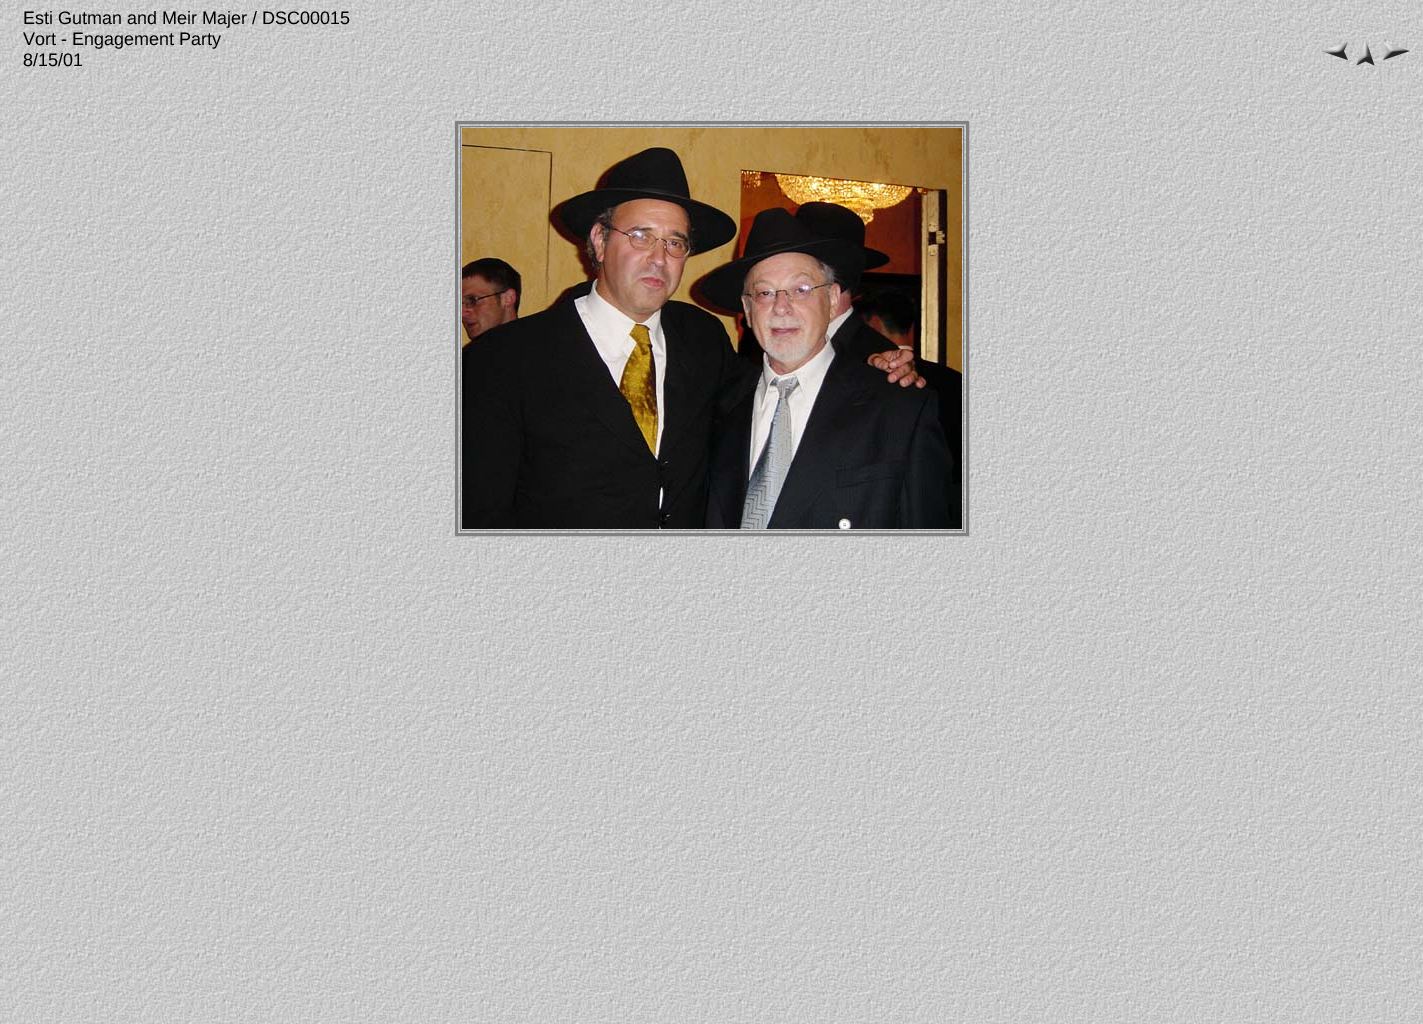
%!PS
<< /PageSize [1423 1024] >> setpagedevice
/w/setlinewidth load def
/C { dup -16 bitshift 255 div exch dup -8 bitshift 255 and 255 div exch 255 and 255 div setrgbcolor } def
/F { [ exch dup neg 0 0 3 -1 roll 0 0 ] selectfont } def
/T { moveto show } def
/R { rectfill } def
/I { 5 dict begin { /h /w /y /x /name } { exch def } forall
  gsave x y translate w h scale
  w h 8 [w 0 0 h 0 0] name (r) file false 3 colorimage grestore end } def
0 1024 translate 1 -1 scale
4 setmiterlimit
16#FFFFFF C
0 0 1423 1024 R
(1.rgb) 0 0 1423 1024 I
/LiberationSans-Regular 18 F
16#000000 C
(Esti Gutman and Meir Majer / DSC00015) 23 24 T
(Vort - Engagement Party) 23 45 T
(8/15/01) 23 66 T
(2.rgb) 1321 42 27 19 I
(3.rgb) 1356 38 19 28 I
(4.rgb) 1383 42 27 19 I
16#808080 C
3 w
456.5 122.5 511 412 rectstroke
1 w
460.5 126.5 503 404 rectstroke
(5.rgb) 462 128 500 401 I
showpage
